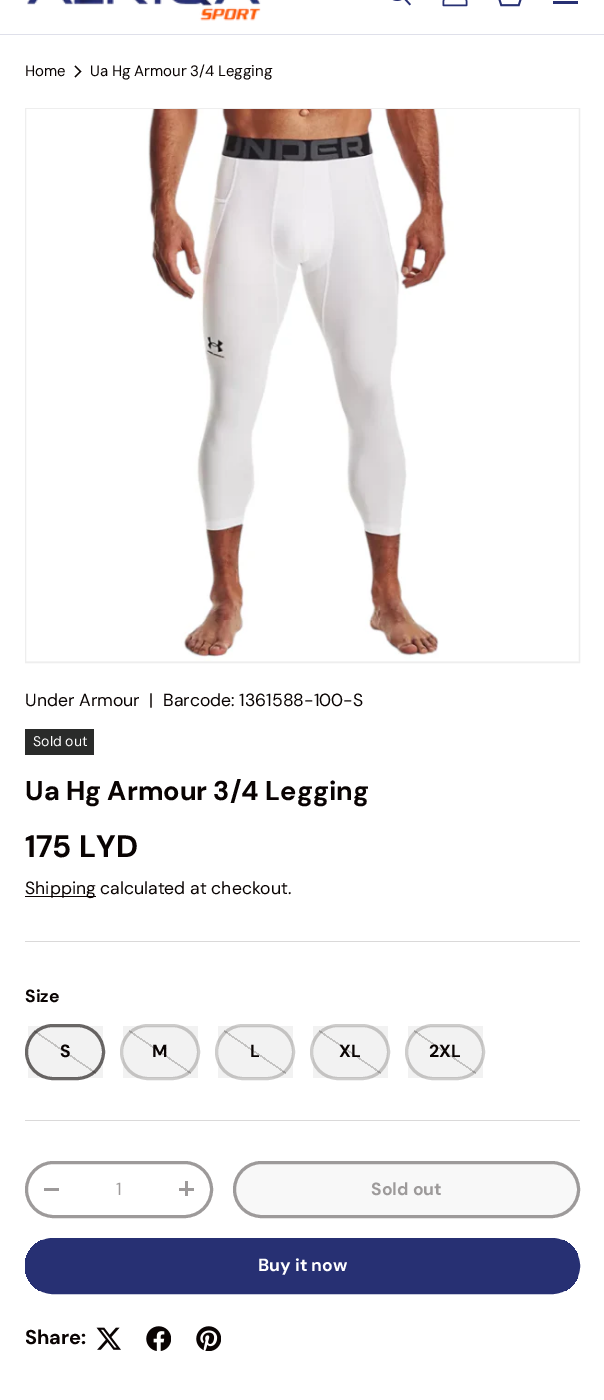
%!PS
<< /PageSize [604 1400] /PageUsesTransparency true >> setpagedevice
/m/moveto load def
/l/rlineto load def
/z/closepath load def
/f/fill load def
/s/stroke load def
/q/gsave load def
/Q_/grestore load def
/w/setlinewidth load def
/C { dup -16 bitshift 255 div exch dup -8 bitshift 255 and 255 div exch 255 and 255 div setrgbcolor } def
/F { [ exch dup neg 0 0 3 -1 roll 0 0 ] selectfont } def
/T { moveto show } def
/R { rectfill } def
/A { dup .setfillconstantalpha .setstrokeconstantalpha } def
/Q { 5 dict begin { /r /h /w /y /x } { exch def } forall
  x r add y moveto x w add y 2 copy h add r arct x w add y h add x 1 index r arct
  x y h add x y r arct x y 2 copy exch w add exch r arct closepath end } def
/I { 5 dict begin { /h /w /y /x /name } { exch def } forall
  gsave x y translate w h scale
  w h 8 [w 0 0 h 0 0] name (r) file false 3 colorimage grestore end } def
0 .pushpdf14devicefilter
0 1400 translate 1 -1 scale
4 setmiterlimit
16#FFFFFF C
0 0 604 1400 R
16#DFE0EA C
0 34 604 1 R
(1.rgb) 27 0 234 21 I
(2.rgb) 392 0 19 6 I
(3.rgb) 442 0 26 7 I
(4.rgb) 498 0 24 7 I
16#273073 C
553 1 25 3 R
/DMSans-Regular 15 F
16#090302 C
(Home) 25 76 T
1.1 w
75 66 m 5.5 5.5 l -5.5 5.5 l s
90 76 m -.5 0 32 (Ua Hg Armour 3/4 Legging) widthshow
16#F4F4F4 C
25.5 108.5 m 554 0 l 0 554 l -554 0 l z q f Q_
16#EEEEEE C
1 w
s
(5.rgb) 26 109 553 552 I
/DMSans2-Regular 17.6 F
16#090302 C
(Under Armour) 25 706 T
(|) 149 706 T
(Barcode: 1361588-100-S) 163 706 T
16#2A2B2A C
25 729 69 26 R
/DMSans-Regular 14 F
16#FFFFFF C
(Sold out) 33 746 T
/DMSans-Bold 27.1 F
16#090302 C
(Ua Hg Armour 3/4 Legging) 25 800 T
/DMSans2-Bold 31 F
(175 LYD) 25 857 T
25 896 71 1 R
/DMSans2-Regular 17.6 F
(Shipping calculated at checkout.) 25 894 T
16#DAD9D9 C
25 941 555 1 R
/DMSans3-Bold 17.6 F
16#090302 C
(Size) 25 1002 T
q
25 1024 80 56 28 Q clip newpath
q 28 1026 m 75 0 l 0 52 l -75 0 l z clip newpath
<< /ShadingType 2 /ColorSpace /DeviceRGB /Coords [89 1017 41 1087] /Extend [true true] /Function << /FunctionType 3 /Domain [0 1] /Functions [<< /FunctionType 2 /Domain [0 1] /C0 [1 1 1] /C1 [1 1 1] /N 1 >> << /FunctionType 2 /Domain [0 1] /C0 [.808 .804 .8] /C1 [.808 .804 .8] /N 1 >> << /FunctionType 2 /Domain [0 1] /C0 [1 1 1] /C1 [1 1 1] /N 1 >>] /Bounds [.49 .51] /Encode [0 1 0 1 0 1] >> >> shfill Q_
Q_
0.6 A
3 w
26.5 1025.5 77 53 26.5 Q s
0.05 A
28 1026 75 52 R
1 A
(S) 60 1057 T
q
120 1024 80 56 28 Q clip newpath
q 123 1026 m 75 0 l 0 52 l -75 0 l z clip newpath
<< /ShadingType 2 /ColorSpace /DeviceRGB /Coords [184 1017 136 1087] /Extend [true true] /Function << /FunctionType 3 /Domain [0 1] /Functions [<< /FunctionType 2 /Domain [0 1] /C0 [1 1 1] /C1 [1 1 1] /N 1 >> << /FunctionType 2 /Domain [0 1] /C0 [.808 .804 .8] /C1 [.808 .804 .8] /N 1 >> << /FunctionType 2 /Domain [0 1] /C0 [1 1 1] /C1 [1 1 1] /N 1 >>] /Bounds [.49 .51] /Encode [0 1 0 1 0 1] >> >> shfill Q_
Q_
0.2 A
121.5 1025.5 77 53 26.5 Q s
0.05 A
123 1026 75 52 R
1 A
(M) 152 1057 T
q
215 1024 80 56 28 Q clip newpath
q 218 1026 m 75 0 l 0 52 l -75 0 l z clip newpath
<< /ShadingType 2 /ColorSpace /DeviceRGB /Coords [279 1017 231 1087] /Extend [true true] /Function << /FunctionType 3 /Domain [0 1] /Functions [<< /FunctionType 2 /Domain [0 1] /C0 [1 1 1] /C1 [1 1 1] /N 1 >> << /FunctionType 2 /Domain [0 1] /C0 [.808 .804 .8] /C1 [.808 .804 .8] /N 1 >> << /FunctionType 2 /Domain [0 1] /C0 [1 1 1] /C1 [1 1 1] /N 1 >>] /Bounds [.49 .51] /Encode [0 1 0 1 0 1] >> >> shfill Q_
Q_
0.2 A
216.5 1025.5 77 53 26.5 Q s
0.05 A
218 1026 75 52 R
1 A
(L) 250 1057 T
q
310 1024 80 56 28 Q clip newpath
q 313 1026 m 75 0 l 0 52 l -75 0 l z clip newpath
<< /ShadingType 2 /ColorSpace /DeviceRGB /Coords [374 1017 326 1087] /Extend [true true] /Function << /FunctionType 3 /Domain [0 1] /Functions [<< /FunctionType 2 /Domain [0 1] /C0 [1 1 1] /C1 [1 1 1] /N 1 >> << /FunctionType 2 /Domain [0 1] /C0 [.808 .804 .8] /C1 [.808 .804 .8] /N 1 >> << /FunctionType 2 /Domain [0 1] /C0 [1 1 1] /C1 [1 1 1] /N 1 >>] /Bounds [.49 .51] /Encode [0 1 0 1 0 1] >> >> shfill Q_
Q_
0.2 A
311.5 1025.5 77 53 26.5 Q s
0.05 A
313 1026 75 52 R
1 A
(XL) 339 1057 T
q
405 1024 80 56 28 Q clip newpath
q 408 1026 m 75 0 l 0 52 l -75 0 l z clip newpath
<< /ShadingType 2 /ColorSpace /DeviceRGB /Coords [469 1017 421 1087] /Extend [true true] /Function << /FunctionType 3 /Domain [0 1] /Functions [<< /FunctionType 2 /Domain [0 1] /C0 [1 1 1] /C1 [1 1 1] /N 1 >> << /FunctionType 2 /Domain [0 1] /C0 [.808 .804 .8] /C1 [.808 .804 .8] /N 1 >> << /FunctionType 2 /Domain [0 1] /C0 [1 1 1] /C1 [1 1 1] /N 1 >>] /Bounds [.49 .51] /Encode [0 1 0 1 0 1] >> >> shfill Q_
Q_
0.2 A
406.5 1025.5 77 53 26.5 Q s
0.05 A
408 1026 75 52 R
1 A
(2XL) 429 1057 T
16#DAD9D9 C
25 1120 555 1 R
16#9D9A9A C
26.5 1162.5 185 54 27 Q s
44 1188 15 3 R
/DMSans2-Regular 17.6 F
(1) 116 1195 T
179 1188 15 3 R
185 1181 3 15 R
q
233 1161 347 57 28.5 Q clip newpath
q 235 1164 m 345 0 l 0 51 l -345 0 l z clip newpath
<< /ShadingType 2 /ColorSpace /DeviceRGB /Coords [259 1067 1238 1311] /Extend [true true] /Function << /FunctionType 3 /Domain [0 1] /Functions [<< /FunctionType 2 /Domain [0 1] /C0 [.973 .973 .973] /C1 [.973 .973 .973] /N 1 >> << /FunctionType 2 /Domain [0 1] /C0 [1 1 1] /C1 [1 1 1] /N 1 >>] /Bounds [.6] /Encode [0 1 0 1] >> >> shfill Q_
Q_
234.5 1162.5 344 54 27 Q s
/DMSans3-Bold 17.6 F
(Sold out) 371 1195 T
q
25 1238 555 56 28 Q clip newpath
q 25 1240 m 553 0 l 0 51 l -553 0 l z clip newpath
<< /ShadingType 2 /ColorSpace /DeviceRGB /Coords [-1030 1070 535 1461] /Extend [true true] /Function << /FunctionType 3 /Domain [0 1] /Functions [<< /FunctionType 2 /Domain [0 1] /C0 [.298 .333 .573] /C1 [.298 .333 .573] /N 1 >> << /FunctionType 2 /Domain [0 1] /C0 [.153 .188 .451] /C1 [.153 .188 .451] /N 1 >>] /Bounds [.6] /Encode [0 1 0 1] >> >> shfill Q_
Q_
16#273073 C
26.5 1239.5 552 53 26.5 Q s
16#FFFFFF C
(Buy it now) 258 1271 T
/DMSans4-Bold 20 F
16#090302 C
(Share:) 25 1344 T
(6.rgb) 96 1327 25 23 I
(7.rgb) 146 1326 25 25 I
(8.rgb) 196 1326 25 25 I
.poppdf14devicefilter showpage
